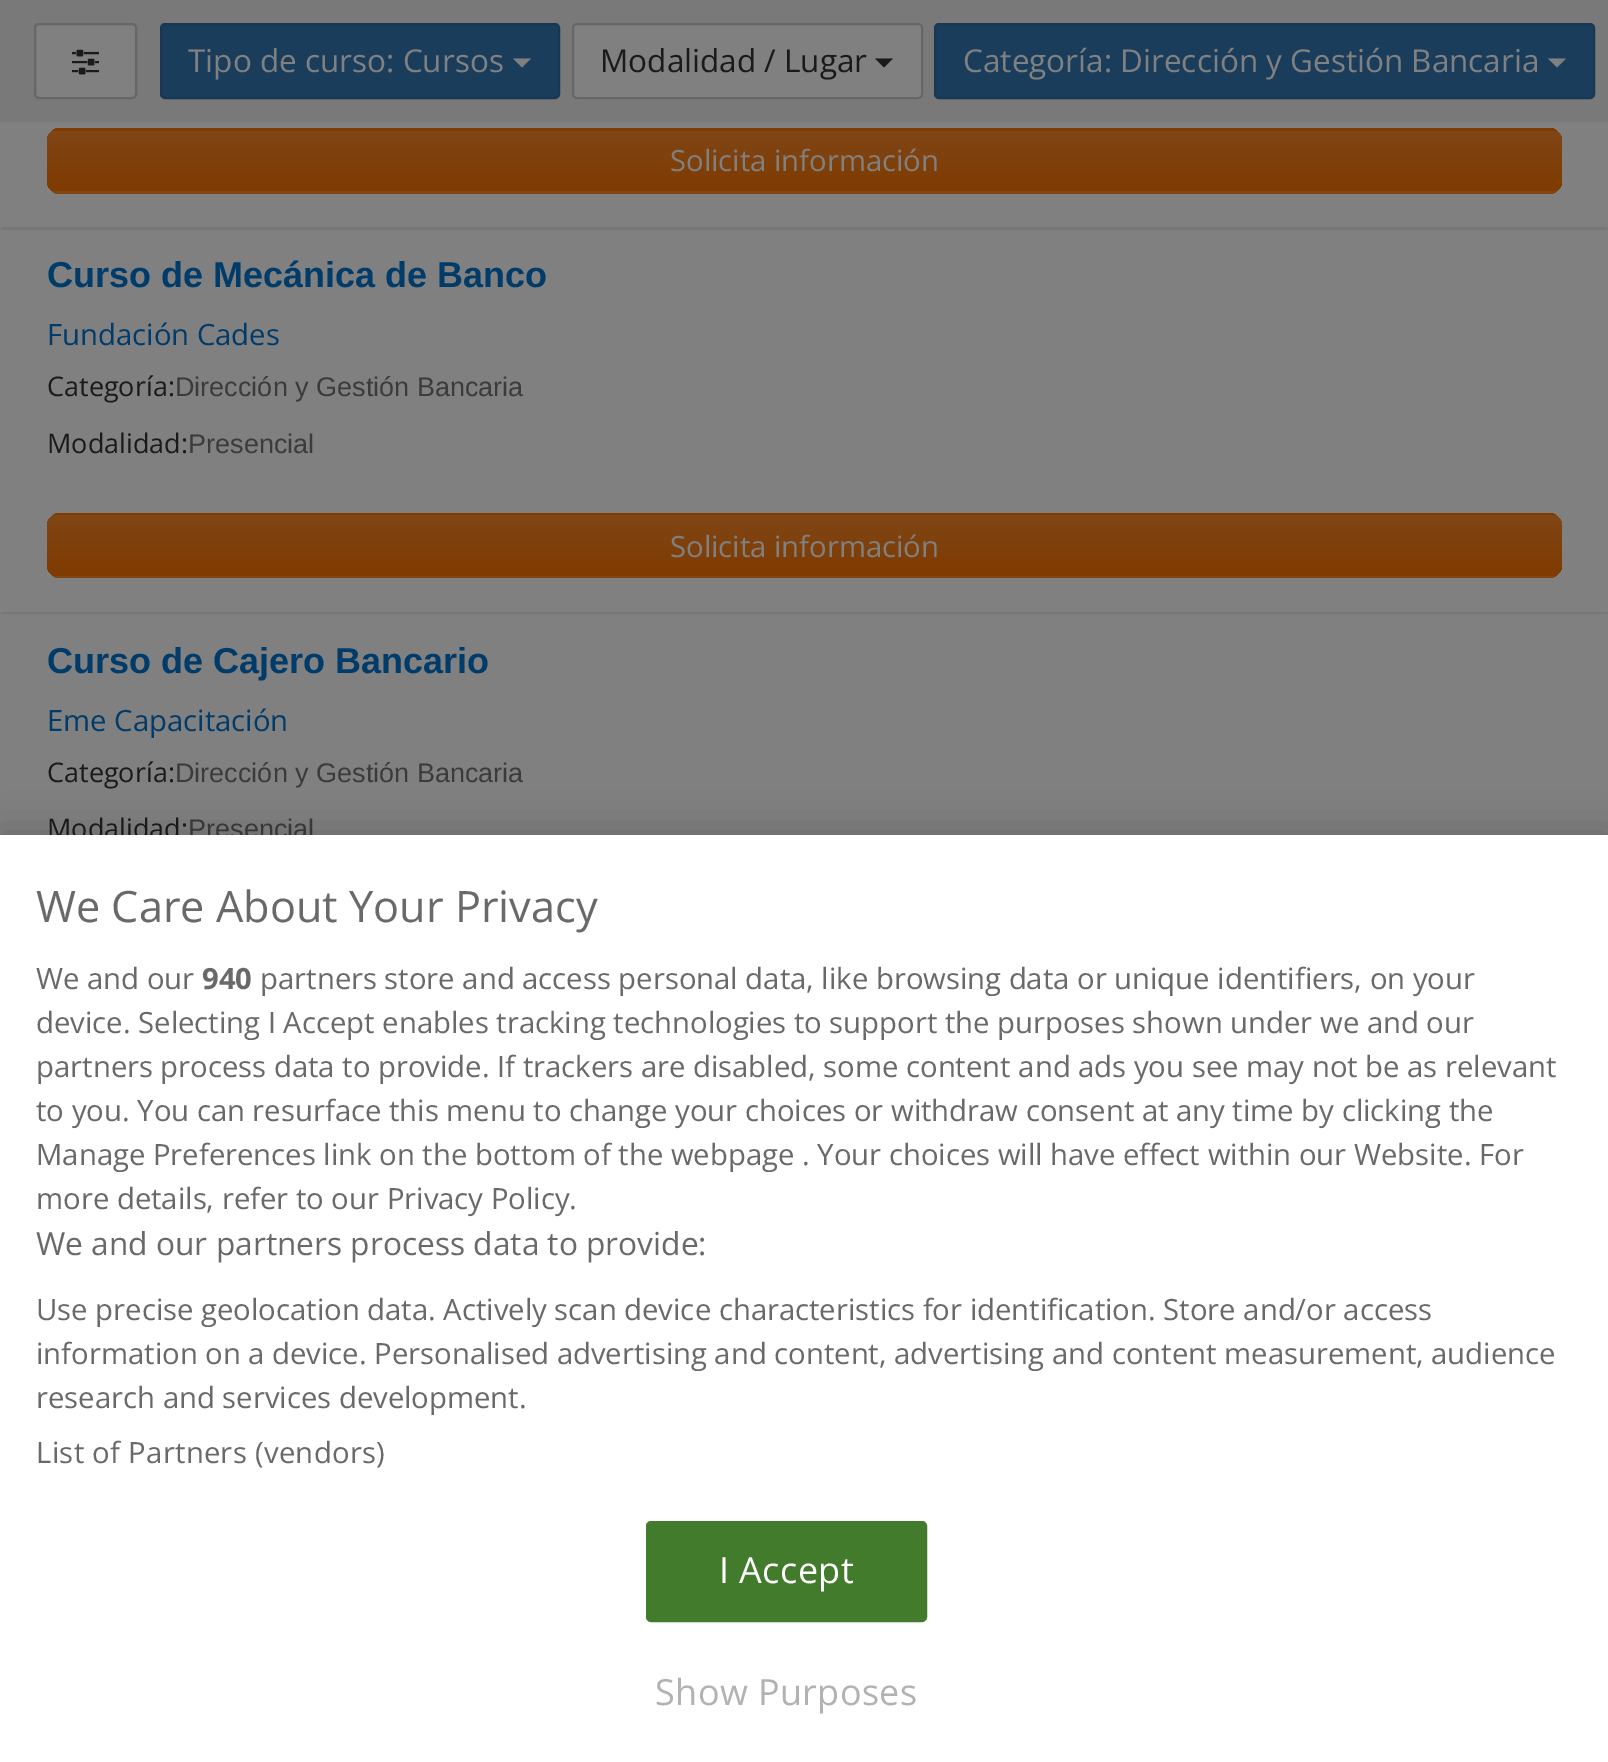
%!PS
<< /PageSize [1608 1762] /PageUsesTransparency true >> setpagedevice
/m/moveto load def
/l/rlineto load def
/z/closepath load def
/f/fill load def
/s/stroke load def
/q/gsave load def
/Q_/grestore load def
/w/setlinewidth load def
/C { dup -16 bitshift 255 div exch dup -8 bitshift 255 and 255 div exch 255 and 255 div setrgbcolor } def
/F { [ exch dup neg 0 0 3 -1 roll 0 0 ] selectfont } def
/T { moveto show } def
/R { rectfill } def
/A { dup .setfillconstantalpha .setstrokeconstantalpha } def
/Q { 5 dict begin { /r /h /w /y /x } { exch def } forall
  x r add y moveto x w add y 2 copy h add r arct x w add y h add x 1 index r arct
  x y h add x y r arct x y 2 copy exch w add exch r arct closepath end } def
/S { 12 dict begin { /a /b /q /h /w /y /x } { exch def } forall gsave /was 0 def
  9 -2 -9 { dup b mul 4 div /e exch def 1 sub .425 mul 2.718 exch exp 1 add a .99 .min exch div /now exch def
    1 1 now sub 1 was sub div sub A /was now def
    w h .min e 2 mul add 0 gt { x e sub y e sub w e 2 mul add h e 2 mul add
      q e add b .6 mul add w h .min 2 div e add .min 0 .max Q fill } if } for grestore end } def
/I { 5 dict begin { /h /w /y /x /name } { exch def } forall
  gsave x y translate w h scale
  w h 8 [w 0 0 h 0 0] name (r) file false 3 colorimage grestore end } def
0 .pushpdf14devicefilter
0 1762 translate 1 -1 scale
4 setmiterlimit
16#808080 C
0 0 1608 1762 R
16#797979 C
0 0 1608 122 R
16#808080 C
35 24 101 74 4 Q q f Q_
16#666666 C
2 w
s
(1.rgb) 72 49 27 26 I
16#1A3D5C C
161 24 398 74 4 Q q f Q_
16#173752 C
s
/OpenSans-Regular 31.5 F
16#808080 C
(Tipo de curso: Cursos) 188 72 T
513 58.5 m 18 0 l -9 9 l z f
573 24 349 74 4 Q q f Q_
16#666666 C
s
16#1A1A1A C
(Modalidad / Lugar) 600 72 T
875 58.5 m 18 0 l -9 9 l z f
16#1A3D5C C
935 24 659 74 4 Q q f Q_
16#173752 C
s
16#808080 C
(Categoría: Dirección y Gestión Bancaria) 963 72 T
1548 58.5 m 18 0 l -9 9 l z f
16#777777 C
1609 230 m -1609 0 l 2 -3 l 1604 0 l z f
q
47 128 1515 66 14 Q clip newpath
q 47 128 m 1515 0 l 0 3 l -1515 0 l z clip newpath
<< /ShadingType 2 /ColorSpace /DeviceRGB /Coords [804 70 804 131] /Extend [true true] /Function << /FunctionType 2 /Domain [0 1] /C0 [.498 .275 .086] /C1 [.502 .231 0] /N 1 >> >> shfill Q_
q 47 131 m 1515 0 l 0 60 l -1515 0 l z clip newpath
<< /ShadingType 2 /ColorSpace /DeviceRGB /Coords [804 130 804 191] /Extend [true true] /Function << /FunctionType 2 /Domain [0 1] /C0 [.498 .275 .086] /C1 [.502 .231 0] /N 1 >> >> shfill Q_
q 47 191 m 1515 0 l 0 3 l -1515 0 l z clip newpath
<< /ShadingType 2 /ColorSpace /DeviceRGB /Coords [804 191 804 252] /Extend [true true] /Function << /FunctionType 2 /Domain [0 1] /C0 [.498 .275 .086] /C1 [.502 .231 0] /N 1 >> >> shfill Q_
Q_
/OpenSans-Regular 29.25 F
16#808080 C
(Solicita información) 670 171 T
16#777777 C
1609 614 m -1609 0 l 2 -2 l 1604 0 l z f
/LiberationSans-Bold 36 F
16#003B69 C
(Curso de Mecánica de Banco) 47 287 T
/OpenSans-Regular 29.25 F
(Fundación Cades) 47 345 T
/OpenSans-Regular 27 F
16#1A1A1A C
(Categoría:) 47 396 T
/LiberationSans-Regular 27 F
16#3B3B3B C
(Dirección y Gestión Bancaria) 175 396 T
/OpenSans-Regular 27 F
16#1A1A1A C
(Modalidad:) 47 453 T
/LiberationSans-Regular 27 F
16#3B3B3B C
(Presencial) 188 453 T
q
47 513 1515 65 14 Q clip newpath
q 47 513 m 1515 0 l 0 2 l -1515 0 l z clip newpath
<< /ShadingType 2 /ColorSpace /DeviceRGB /Coords [804 454 804 515] /Extend [true true] /Function << /FunctionType 2 /Domain [0 1] /C0 [.498 .275 .086] /C1 [.502 .231 0] /N 1 >> >> shfill Q_
q 47 515 m 1515 0 l 0 61 l -1515 0 l z clip newpath
<< /ShadingType 2 /ColorSpace /DeviceRGB /Coords [804 515 804 576] /Extend [true true] /Function << /FunctionType 2 /Domain [0 1] /C0 [.498 .275 .086] /C1 [.502 .231 0] /N 1 >> >> shfill Q_
q 47 576 m 1515 0 l 0 2 l -1515 0 l z clip newpath
<< /ShadingType 2 /ColorSpace /DeviceRGB /Coords [804 576 804 637] /Extend [true true] /Function << /FunctionType 2 /Domain [0 1] /C0 [.498 .275 .086] /C1 [.502 .231 0] /N 1 >> >> shfill Q_
Q_
/OpenSans-Regular 29.25 F
16#808080 C
(Solicita información) 670 557 T
/LiberationSans-Bold 36 F
16#003B69 C
(Curso de Cajero Bancario) 47 673 T
/OpenSans-Regular 29.25 F
(Eme Capacitación) 47 731 T
/OpenSans-Regular 27 F
16#1A1A1A C
(Categoría:) 47 782 T
/LiberationSans-Regular 27 F
16#3B3B3B C
(Dirección y Gestión Bancaria) 175 782 T
/OpenSans-Regular 27 F
16#1A1A1A C
(Modalidad:) 47 838 T
/LiberationSans-Regular 27 F
16#3B3B3B C
(Presencial) 188 838 T
16#000000 C
0 835 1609 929 0 20 .2 S
16#FFFFFF C
0 835 1608 927 R
/OpenSans-Regular 43.25 F
16#696969 C
(We Care About Your Privacy) 36 922 T
/OpenSans-Regular 29.27 F
(We and our) 36 989 T
/OpenSans-Bold 29.27 F
(940) 202 989 T
/OpenSans-Regular 29.27 F
(partners store and access personal data, like browsing data or unique identifiers, on your) 260 989 T
(device. Selecting I Accept enables tracking technologies to support the purposes shown under we and our) 36 1033 T
(partners process data to provide. If trackers are disabled, some content and ads you see may not be as relevant) 36 1077 T
(to you. You can resurface this menu to change your choices or withdraw consent at any time by clicking the) 36 1121 T
(Manage Preferences link on the bottom of the webpage . Your choices will have effect within our Website. For) 36 1165 T
(more details, refer to our Privacy Policy.) 36 1209 T
/OpenSans-Regular 31.7 F
(We and our partners process data to provide:) 36 1255 T
/OpenSans-Regular 29.27 F
(Use precise geolocation data. Actively scan device characteristics for identification. Store and/or access) 36 1320 T
(information on a device. Personalised advertising and content, advertising and content measurement, audience) 36 1364 T
(research and services development.) 36 1408 T
36 1463 m .3 0 (List of Partners \(vendors\)) ashow
16#437B2D C
647 1522 279 99 4 Q q f Q_
s
/OpenSans-Regular 36 F
16#FFFFFF C
719 1583 m .4 0 (I Accept) ashow
16#B3B1B1 C
655 1705 m .4 0 (Show Purposes) ashow
.poppdf14devicefilter showpage
